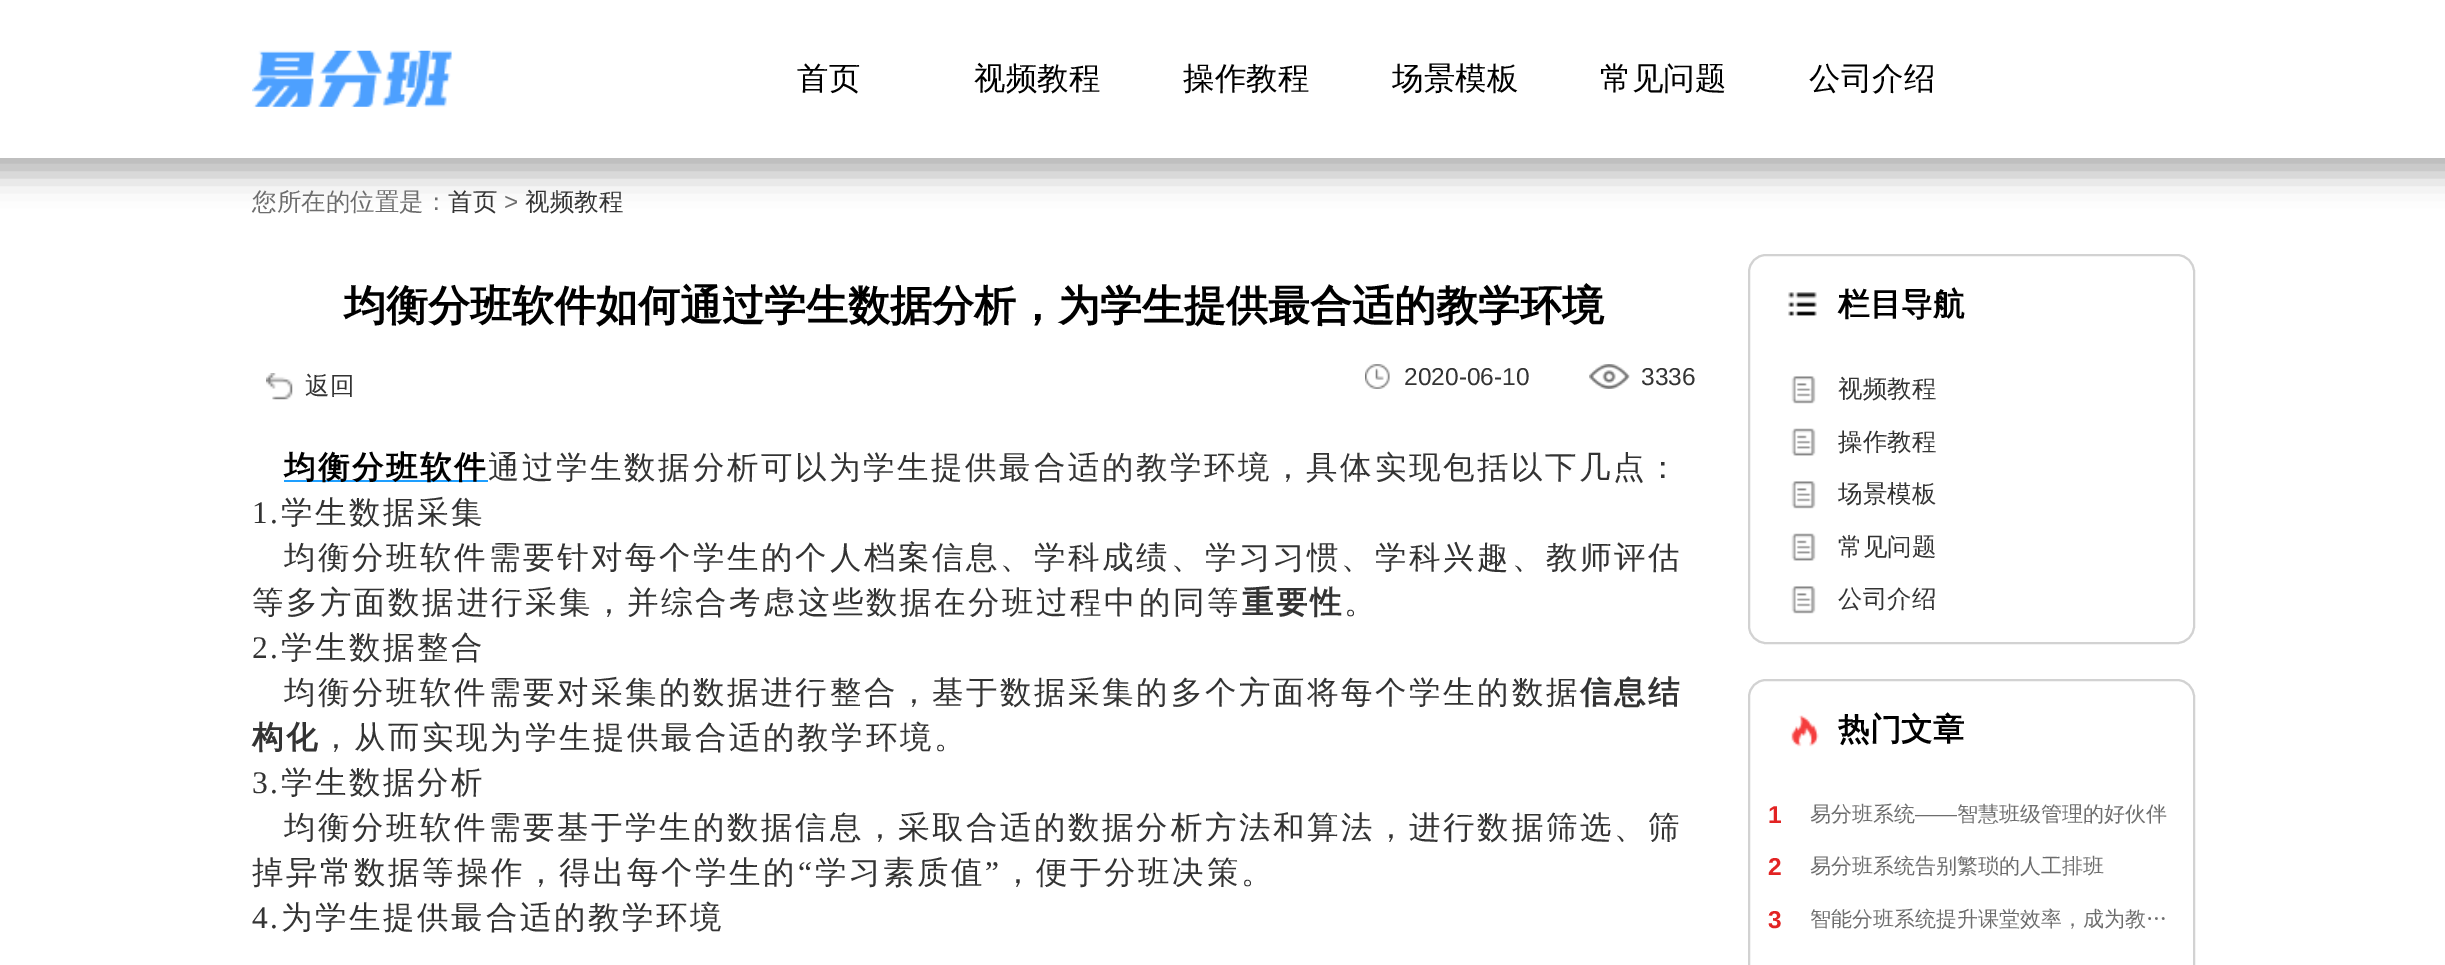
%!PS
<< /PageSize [2445 965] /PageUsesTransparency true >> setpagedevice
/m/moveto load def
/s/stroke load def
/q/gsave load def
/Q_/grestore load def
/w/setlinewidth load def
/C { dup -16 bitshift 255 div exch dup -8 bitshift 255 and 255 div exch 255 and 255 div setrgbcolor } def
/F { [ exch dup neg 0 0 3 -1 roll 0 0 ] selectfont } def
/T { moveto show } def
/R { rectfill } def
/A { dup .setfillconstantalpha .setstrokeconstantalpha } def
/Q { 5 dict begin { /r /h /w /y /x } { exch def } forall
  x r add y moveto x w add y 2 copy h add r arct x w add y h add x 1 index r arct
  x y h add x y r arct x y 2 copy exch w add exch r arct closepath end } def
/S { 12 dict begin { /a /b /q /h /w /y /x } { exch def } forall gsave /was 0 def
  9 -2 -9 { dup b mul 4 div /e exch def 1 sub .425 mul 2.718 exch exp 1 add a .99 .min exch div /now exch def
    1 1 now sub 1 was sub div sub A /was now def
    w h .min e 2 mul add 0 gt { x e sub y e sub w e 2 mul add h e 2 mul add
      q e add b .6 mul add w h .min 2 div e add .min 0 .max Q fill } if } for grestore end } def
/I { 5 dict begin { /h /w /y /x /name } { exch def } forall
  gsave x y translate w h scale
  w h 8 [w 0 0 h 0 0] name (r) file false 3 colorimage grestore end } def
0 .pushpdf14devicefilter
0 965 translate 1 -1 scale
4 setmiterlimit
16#FFFFFF C
0 0 2445 965 R
16#000000 C
-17 -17 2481 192 0 15 .3 S
16#FFFFFF C
0 0 2445 158 R
(1.rgb) 252 50 200 57 I
/WenQuanYiZenHei-Medium 31.5 F
16#000000 C
(首页) 797 89 T
(视频教程) 974 89 T
(操作教程) 1183 89 T
(场景模板) 1392 89 T
(常见问题) 1600 89 T
(公司介绍) 1809 89 T
/WenQuanYiZenHei-Medium 24.5 F
16#6D6D6D C
(您所在的位置是：) 252 210 T
16#333333 C
(首页) 448 210 T
/LiberationSans-Regular 24.5 F
16#6D6D6D C
(>) 504 210 T
/WenQuanYiZenHei-Medium 24.5 F
16#333333 C
(视频教程) 525 210 T
/WenQuanYiZenHei-Bold 42 F
16#000000 C
(均衡分班软件如何通过学生数据分析，为学生提供最合适的教学环境) 344 320 T
(2.rgb) 266 373 27 27 I
/WenQuanYiZenHei-Medium 24.5 F
16#333333 C
(返回) 305 394 T
(3.rgb) 1365 364 25 25 I
/LiberationSans-Regular 24.5 F
(2020-06-10) 1404 385 T
(4.rgb) 1589 364 41 25 I
(3336) 1641 385 T
16#1E9FFF C
284 480 204 2 R
/WenQuanYiZenHei-Bold 31.5 F
16#000000 C
284 478 m 2.6 0 (均衡分班软件) ashow
/WenQuanYiZenHei-Medium 31.5 F
16#333333 C
488 478 m 2.6 0 (通过学生数据分析可以为学生提供最合适的教学环境，具体实现包括以下几点：) ashow
/LiberationSerif-Regular 31.5 F
252 523 m 2.6 0 (1.) ashow
/WenQuanYiZenHei-Medium 31.5 F
281 523 m 2.6 0 (学生数据采集) ashow
284 568 m 2.6 0 (均衡分班软件需要针对每个学生的个人档案信息、学科成绩、学习习惯、学科兴趣、教师评估) ashow
252 613 m 2.6 0 (等多方面数据进行采集，并综合考虑这些数据在分班过程中的同等) ashow
/WenQuanYiZenHei-Bold 31.5 F
1242 613 m 2.6 0 (重要性) ashow
/WenQuanYiZenHei-Medium 31.5 F
1344 613 m 2.6 0 (。) ashow
/LiberationSerif-Regular 31.5 F
252 658 m 2.6 0 (2.) ashow
/WenQuanYiZenHei-Medium 31.5 F
281 658 m 2.6 0 (学生数据整合) ashow
284 703 m 2.6 0 (均衡分班软件需要对采集的数据进行整合，基于数据采集的多个方面将每个学生的数据) ashow
/WenQuanYiZenHei-Bold 31.5 F
1580 703 m 2.6 0 (信息结) ashow
252 748 m 2.6 0 (构化) ashow
/WenQuanYiZenHei-Medium 31.5 F
320 748 m 2.6 0 (，从而实现为学生提供最合适的教学环境。) ashow
/LiberationSerif-Regular 31.5 F
252 793 m 2.6 0 (3.) ashow
/WenQuanYiZenHei-Medium 31.5 F
281 793 m 2.6 0 (学生数据分析) ashow
284 838 m 2.6 0 (均衡分班软件需要基于学生的数据信息，采取合适的数据分析方法和算法，进行数据筛选、筛) ashow
252 883 m 2.6 0 (掉异常数据等操作，得出每个学生的) ashow
/LiberationSerif-Regular 31.5 F
798 883 m 2.6 0 (“) ashow
/WenQuanYiZenHei-Medium 31.5 F
815 883 m 2.6 0 (学习素质值) ashow
/LiberationSerif-Regular 31.5 F
985 883 m 2.6 0 (”) ashow
/WenQuanYiZenHei-Medium 31.5 F
1002 883 m 2.6 0 (，便于分班决策。) ashow
/LiberationSerif-Regular 31.5 F
252 928 m 2.6 0 (4.) ashow
/WenQuanYiZenHei-Medium 31.5 F
281 928 m 2.6 0 (为学生提供最合适的教学环境) ashow
16#D2D2D2 C
2 w
1749 255 445 388 17 Q s
(5.rgb) 1788 292 29 24 I
/WenQuanYiZenHei-Bold 31.5 F
16#000000 C
(栏目导航) 1838 315 T
(6.rgb) 1791 376 25 28 I
/WenQuanYiZenHei-Medium 24.5 F
16#333333 C
(视频教程) 1838 397 T
(7.rgb) 1791 428 25 28 I
(操作教程) 1838 450 T
(6.rgb) 1791 481 25 28 I
q
1838 467 337 53 rectclip
(场景模板) 1838 502 T
Q_
(7.rgb) 1791 533 25 28 I
(常见问题) 1838 555 T
(6.rgb) 1791 586 25 28 I
(公司介绍) 1838 607 T
16#D2D2D2 C
1749 680 445 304 17 Q s
(8.rgb) 1791 715 28 32 I
/WenQuanYiZenHei-Bold 31.5 F
16#000000 C
(热门文章) 1838 740 T
/LiberationSans-Bold 24.5 F
16#E22323 C
(1) 1768 823 T
/WenQuanYiZenHei-Medium 21 F
16#6D6D6D C
(易分班系统) 1810 821 T
/LiberationSans-Regular 21 F
(——) 1915 821 T
/WenQuanYiZenHei-Medium 21 F
(智慧班级管理的好伙伴) 1957 821 T
/LiberationSans-Bold 24.5 F
16#E22323 C
(2) 1768 875 T
/WenQuanYiZenHei-Medium 21 F
16#6D6D6D C
(易分班系统告别繁琐的人工排班) 1810 873 T
/LiberationSans-Bold 24.5 F
16#E22323 C
(3) 1768 928 T
/WenQuanYiZenHei-Medium 21 F
16#6D6D6D C
(智能分班系统提升课堂效率，成为教…) 1810 926 T
.poppdf14devicefilter showpage
